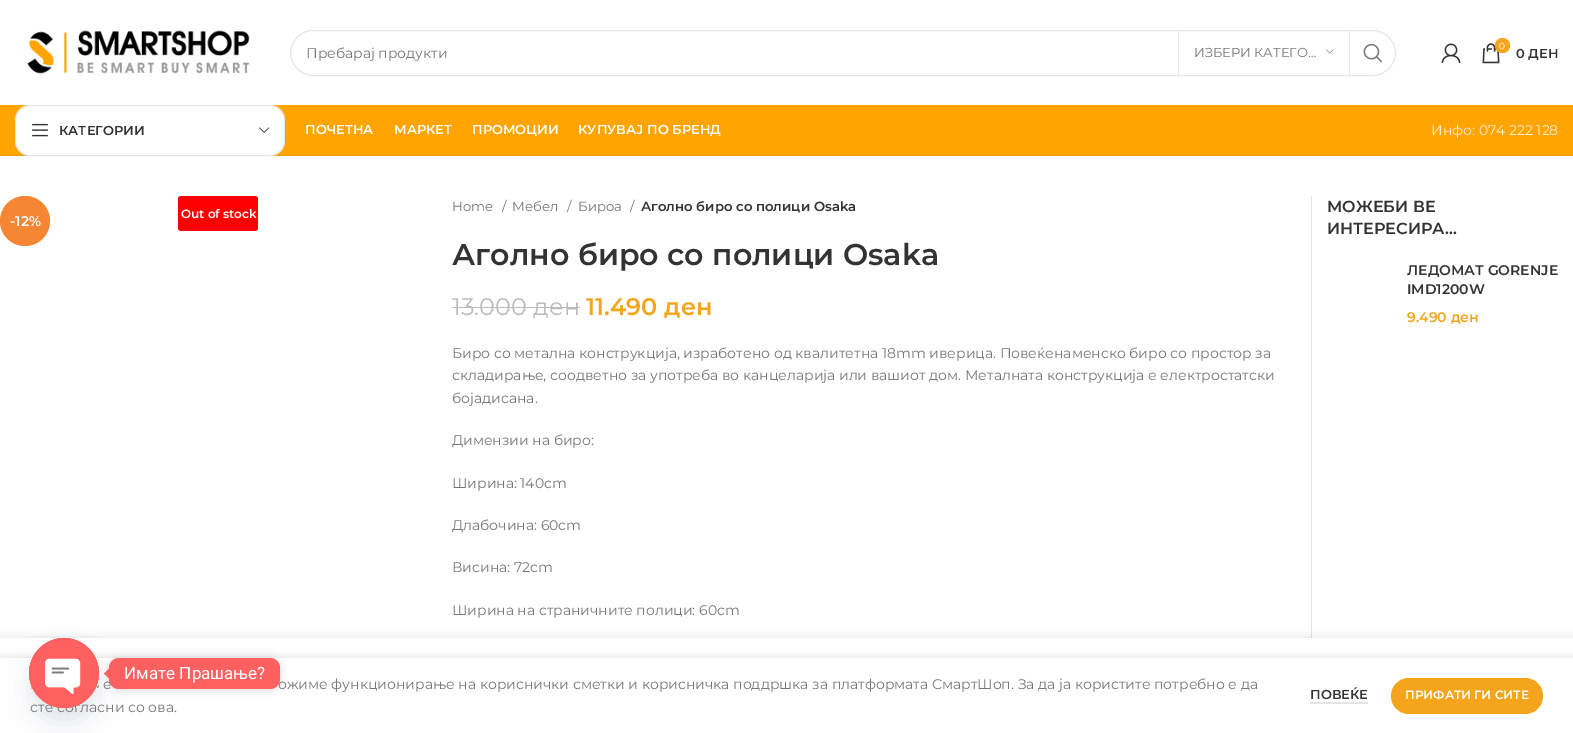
%!PS
<< /PageSize [1573 733] /PageUsesTransparency true >> setpagedevice
/m/moveto load def
/l/rlineto load def
/z/closepath load def
/f/fill load def
/s/stroke load def
/C { dup -16 bitshift 255 div exch dup -8 bitshift 255 and 255 div exch 255 and 255 div setrgbcolor } def
/F { [ exch dup neg 0 0 3 -1 roll 0 0 ] selectfont } def
/T { moveto show } def
/R { rectfill } def
/A { dup .setfillconstantalpha .setstrokeconstantalpha } def
/O { newpath 0 360 arc closepath } def
/Q { 5 dict begin { /r /h /w /y /x } { exch def } forall
  x r add y moveto x w add y 2 copy h add r arct x w add y h add x 1 index r arct
  x y h add x y r arct x y 2 copy exch w add exch r arct closepath end } def
/S { 12 dict begin { /a /b /q /h /w /y /x } { exch def } forall gsave /was 0 def
  9 -2 -9 { dup b mul 4 div /e exch def 1 sub .425 mul 2.718 exch exp 1 add a .99 .min exch div /now exch def
    1 1 now sub 1 was sub div sub A /was now def
    w h .min e 2 mul add 0 gt { x e sub y e sub w e 2 mul add h e 2 mul add
      q e add b .6 mul add w h .min 2 div e add .min 0 .max Q fill } if } for grestore end } def
/I { 5 dict begin { /h /w /y /x /name } { exch def } forall
  gsave x y translate w h scale
  w h 8 [w 0 0 h 0 0] name (r) file false 3 colorimage grestore end } def
0 .pushpdf14devicefilter
0 733 translate 1 -1 scale
4 setmiterlimit
16#FFFFFF C
0 0 1573 733 R
(1.rgb) 27 30 223 44 I
16#E6E6E6 C
290.5 30.5 1105 45 22.5 Q s
/Montserrat-Regular 14 F
16#777777 C
(Пребарај продукти) 306 58 T
16#E6E6E6 C
1349 31 1 44 R
1178 31 1 44 R
/Montserrat-Regular 13 F
16#777777 C
(ИЗБЕРИ КАТЕГО…) 1194 57 T
(2.rgb) 1326 49 8 5 I
(3.rgb) 1363 43 20 20 I
(4.rgb) 1441 43 20 20 I
(5.rgb) 1482 43 18 21 I
16#F4A51C C
1502.5 45.5 7.5 O f
/Montserrat-Regular 9 F
16#FFFFFF C
(0) 1499 49 T
/Montserrat-SemiBold 13 F
16#333333 C
(0 ДЕН) 1516 58 T
16#FFA400 C
0 105 1573 50 R
16#E69D1A C
0 155 1573 1 R
16#FFFFFF C
15 105 270 51 15 Q f
0.2 A
16#818181 C
15.5 105.5 269 50 14.5 Q s
1 A
(6.rgb) 32 123 16 14 I
16#333333 C
(КАТЕГОРИИ) 59 135 T
(7.rgb) 259 127 11 6 I
16#FFFFFF C
(ПОЧЕТНА) 305 134 T
(МАРКЕТ) 394 134 T
(ПРОМОЦИИ) 472 134 T
(КУПУВАЈ ПО БРЕНД) 578 134 T
/Montserrat-Regular 14 F
16#FFEDCC C
(Инфо: 074 222 128) 1431 135 T
16#FF0000 C
178 196 80 35 3 Q f
/Montserrat-SemiBold 12 F
16#FFFFFF C
(Out of stock) 181 218 T
16#F58634 C
25 221 25 O f
/Montserrat-SemiBold 14 F
16#FFFFFF C
(-12%) 10 226 T
/Montserrat-Regular 13.25 F
16#777777 C
(Home) 452 211 T
(/) 502 211 T
(Мебел) 512 211 T
(/) 567 211 T
(Бироа) 578 211 T
(/) 630 211 T
/Montserrat-SemiBold 13.25 F
16#333333 C
(Аголно биро со полици Osaka) 641 211 T
/Montserrat-SemiBold 30 F
(Аголно биро со полици Osaka) 452 265 T
/Montserrat-Regular 24 F
16#BBBBBB C
(13.000 ден) 452 315 T
452 307 128 1 R
/Montserrat-SemiBold 24 F
16#F4A51C C
(11.490 ден) 586 315 T
/Montserrat-Regular 14 F
16#777777 C
(Биро со метална конструкција, изработено од квалитетна 18mm иверица. Повеќенаменско биро со простор за) 452 358 T
(складирање, соодветно за употреба во канцеларија или вашиот дом. Металната конструкција е електростатски) 452 380 T
(бојадисана.) 452 403 T
(Димензии на биро:) 452 445 T
(Ширина: 140cm) 452 488 T
(Длабочина: 60cm) 452 530 T
(Висина: 72cm) 452 572 T
(Ширина на страничните полици: 60cm) 452 615 T
16#E4E4E4 C
1311 196 1 442 R
/Montserrat-SemiBold 16 F
16#333333 C
(МОЖЕБИ ВЕ) 1327 212 T
(ИНТЕРЕСИРА…) 1327 234 T
/Montserrat-SemiBold 14 F
(ЛЕДОМАТ GORENJE) 1407 275 T
(IMD1200W) 1407 294 T
16#F4A51C C
(9.490 ден) 1407 322 T
16#000000 C
0 638 1573 95 0 4.5 .12 S
16#FFFFFF C
0 638 1573 20 R
16#000000 C
0 658 1573 75 0 4.5 .14 S
16#FFFFFF C
0 658 1573 75 R
16#000000 C
109 659 171 31 10 4 .15 S
/Montserrat-Regular 14 F
16#777777 C
(е) 103 689 T
(ожиме функционирање на кориснички сметки и корисничка поддршка за платформата СмартШоп. За да ја користите потребно е да) 278 689 T
16#FF6060 C
109 658 171 31 10 Q f
109 668.5 m 0 10 l -5 -5 l z f
16#49687E C
29 654 70 70 35 12 .16 S
16#777777 C
(сте согласни со ова.) 30 712 T
(8.rgb) 29 638 70 70 I
/Roboto-Regular 17 F
16#FFFFFF C
(Имате Прашање?) 124 679 T
/Montserrat-SemiBold 13 F
16#333333 C
(ПОВЕЌЕ) 1310 699 T
16#E4E4E4 C
1310 702 58 2 R
16#F4A51C C
1391 678 152 36 18 Q f
/Montserrat-SemiBold 12 F
16#FFFFFF C
(ПРИФАТИ ГИ СИТЕ) 1405 699 T
.poppdf14devicefilter showpage
